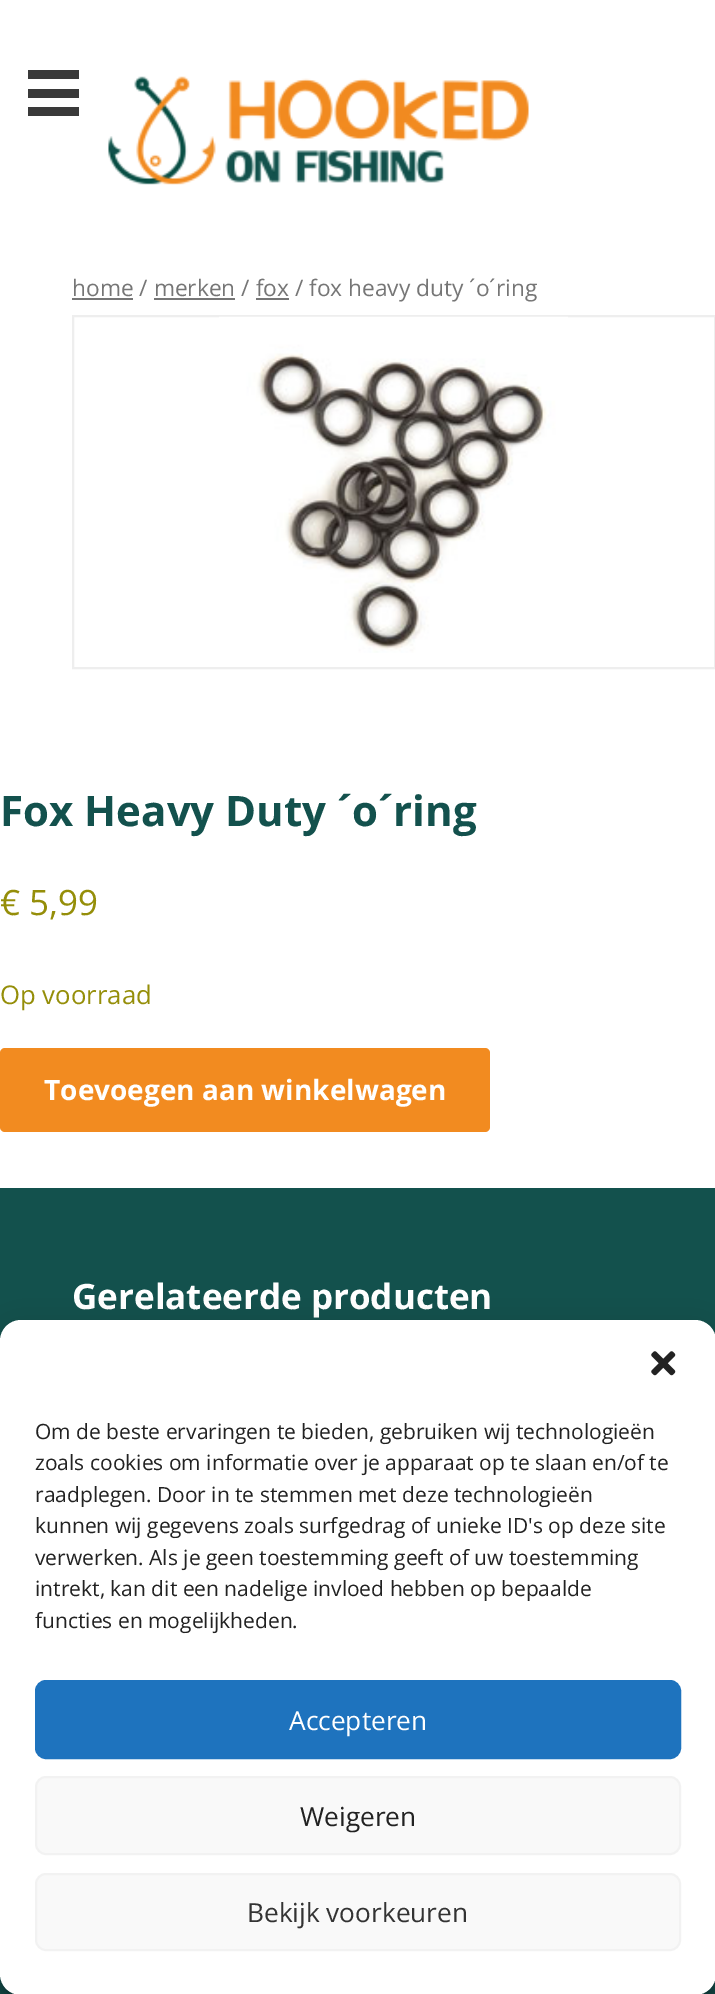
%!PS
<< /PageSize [715 1994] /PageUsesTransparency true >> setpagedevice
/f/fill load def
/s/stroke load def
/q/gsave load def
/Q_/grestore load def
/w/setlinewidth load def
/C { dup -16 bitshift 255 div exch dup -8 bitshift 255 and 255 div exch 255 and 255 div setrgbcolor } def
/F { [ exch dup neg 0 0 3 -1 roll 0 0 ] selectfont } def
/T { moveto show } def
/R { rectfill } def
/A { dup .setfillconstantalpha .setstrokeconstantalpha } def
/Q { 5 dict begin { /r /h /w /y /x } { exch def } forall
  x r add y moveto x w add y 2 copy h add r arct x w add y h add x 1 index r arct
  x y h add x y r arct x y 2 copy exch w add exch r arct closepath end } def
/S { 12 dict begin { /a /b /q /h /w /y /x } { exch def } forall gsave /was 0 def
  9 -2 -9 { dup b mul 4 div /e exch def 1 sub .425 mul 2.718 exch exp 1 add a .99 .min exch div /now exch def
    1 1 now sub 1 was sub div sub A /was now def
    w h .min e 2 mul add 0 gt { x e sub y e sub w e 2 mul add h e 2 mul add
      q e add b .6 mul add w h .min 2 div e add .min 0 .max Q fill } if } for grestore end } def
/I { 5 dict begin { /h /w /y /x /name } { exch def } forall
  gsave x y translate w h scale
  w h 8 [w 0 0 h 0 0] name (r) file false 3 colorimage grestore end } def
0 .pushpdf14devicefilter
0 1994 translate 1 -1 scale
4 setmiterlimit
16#FFFFFF C
0 0 715 1994 R
16#3A3A3A C
28 70 51 9 R
28 89 51 9 R
28 107 51 9 R
(1.rgb) 108 76 421 109 I
16#767676 C
72 298 61 2 R
/OpenSans-Regular 22.75 F
(home / merken / fox / fox heavy duty ´o´ring) 72 296 T
154 298 81 2 R
256 298 33 2 R
16#EEEEEE C
2 w
73 316 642 352 rectstroke
(2.rgb) 219 316 349 337 I
/OpenSans-Bold 42 F
16#13514D C
(Fox Heavy Duty ´o´ring) 0 826 T
/OpenSans-Regular 35 F
16#958E09 C
(€ 5,99) 0 915 T
/OpenSans-Regular 25.75 F
(Op voorraad) 0 1004 T
16#F28B20 C
0 1048 490 84 5 Q f
/OpenSans-Bold 28 F
16#FFFFFF C
(Toevoegen aan winkelwagen) 44 1100 T
16#13514D C
0 1188 715 806 R
/OpenSans-Bold 35 F
16#FFFFFF C
(Gerelateerde producten) 72 1309 T
16#000000 C
0 1330 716 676 21 5 .23 S
0 1337 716 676 21 17.5 .19 S
16#FFFFFF C
0 1320 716 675 21 Q f
(3.rgb) 651 1351 25 25 I
/OpenSans-Regular 21 F
16#222222 C
(Om de beste ervaringen te bieden, gebruiken wij technologieën) 35 1439 T
(zoals cookies om informatie over je apparaat op te slaan en/of te) 35 1470 T
(raadplegen. Door in te stemmen met deze technologieën) 35 1502 T
(kunnen wij gegevens zoals surfgedrag of unieke ID's op deze site) 35 1533 T
(verwerken. Als je geen toestemming geeft of uw toestemming) 35 1565 T
(intrekt, kan dit een nadelige invloed hebben op bepaalde) 35 1596 T
(functies en mogelijkheden.) 35 1628 T
16#1E73BE C
36 1681 644 77 10 Q q f Q_
s
/OpenSans-Regular 26.25 F
16#FFFFFF C
(Accepteren) 289 1730 T
16#F9F9F9 C
36 1777 644 77 10 Q q f Q_
16#F2F2F2 C
s
16#222222 C
(Weigeren) 300 1826 T
16#F9F9F9 C
36 1874 644 76 10 Q q f Q_
16#F2F2F2 C
s
16#333333 C
(Bekijk voorkeuren) 247 1922 T
.poppdf14devicefilter showpage
